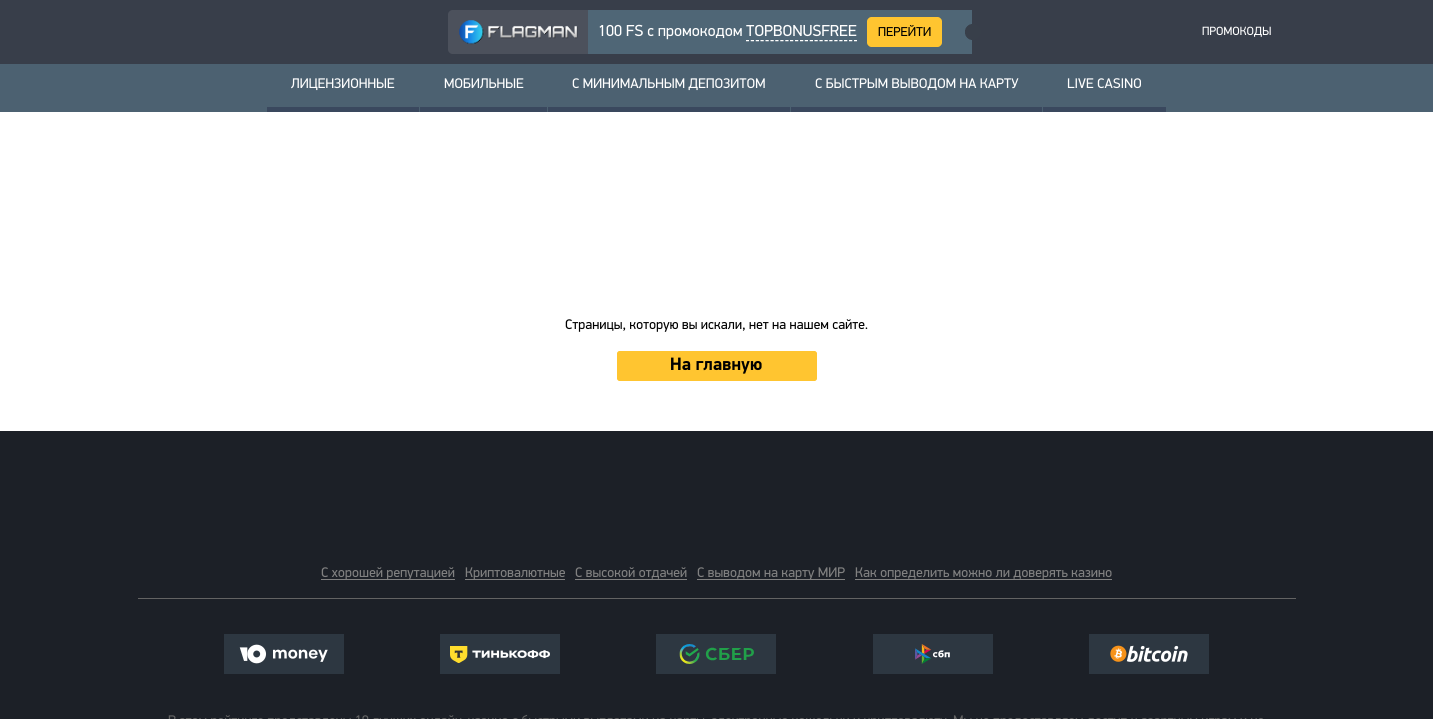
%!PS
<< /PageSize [1433 719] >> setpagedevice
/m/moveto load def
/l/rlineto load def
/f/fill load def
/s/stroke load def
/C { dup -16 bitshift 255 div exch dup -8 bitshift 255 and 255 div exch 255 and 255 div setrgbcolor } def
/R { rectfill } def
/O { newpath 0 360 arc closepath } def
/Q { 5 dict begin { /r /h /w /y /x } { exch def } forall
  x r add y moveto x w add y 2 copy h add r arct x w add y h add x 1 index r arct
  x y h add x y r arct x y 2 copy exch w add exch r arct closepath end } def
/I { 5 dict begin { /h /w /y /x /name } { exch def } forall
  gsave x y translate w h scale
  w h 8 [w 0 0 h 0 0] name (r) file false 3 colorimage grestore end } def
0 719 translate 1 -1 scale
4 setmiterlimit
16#FFFFFF C
0 0 1433 719 R
16#383E4A C
0 0 1433 64 R
16#4C515C C
448 10 524 44 5 Q f
(1.rgb) 459 20 119 25 I
16#4F6676 C
588 10 384 44 R
(2.rgb) 599 24 143 16 I
(3.rgb) 746 24 111 13 I
16#FFFFFF C
[3 1.91] 0 setdash
746 40.5 m 111 0 l s
16#FFC530 C
867 17 75 30 5 Q f
(4.rgb) 878 25 53 11 I
16#383F4A C
973 32 8 O f
(5.rgb) 1202 26 69 11 I
16#4C6171 C
0 64 1433 48 R
16#3A485E C
267 107 152 5 R
(6.rgb) 291 78 104 13 I
420 107 127 5 R
(7.rgb) 444 78 80 11 I
548 107 242 5 R
(8.rgb) 572 78 193 13 I
791 107 251 5 R
(9.rgb) 815 78 204 13 I
1043 107 123 5 R
(10.rgb) 1067 78 74 11 I
(11.rgb) 565 319 303 13 I
16#FFC530 C
617 351 200 30 3 Q f
(12.rgb) 671 357 91 17 I
16#1C2027 C
0 431 1433 288 R
16#636363 C
138 598 1158 1 R
(13.rgb) 321 567 134 12 I
16#818181 C
321 579 134 1 R
(14.rgb) 465 567 100 12 I
465 579 100 1 R
(15.rgb) 575 567 112 12 I
575 579 112 1 R
(16.rgb) 697 567 148 12 I
697 579 148 1 R
(17.rgb) 855 567 257 12 I
855 579 257 1 R
16#2D3741 C
224 634 120 40 R
(18.rgb) 239 644 89 20 I
440 634 120 40 R
(19.rgb) 450 646 100 17 I
656 634 120 40 R
(20.rgb) 679 644 75 20 I
873 634 120 40 R
(21.rgb) 915 644 35 20 I
1089 634 120 40 R
(22.rgb) 1110 645 78 17 I
(23.rgb) 168 714 1095 5 I
showpage
